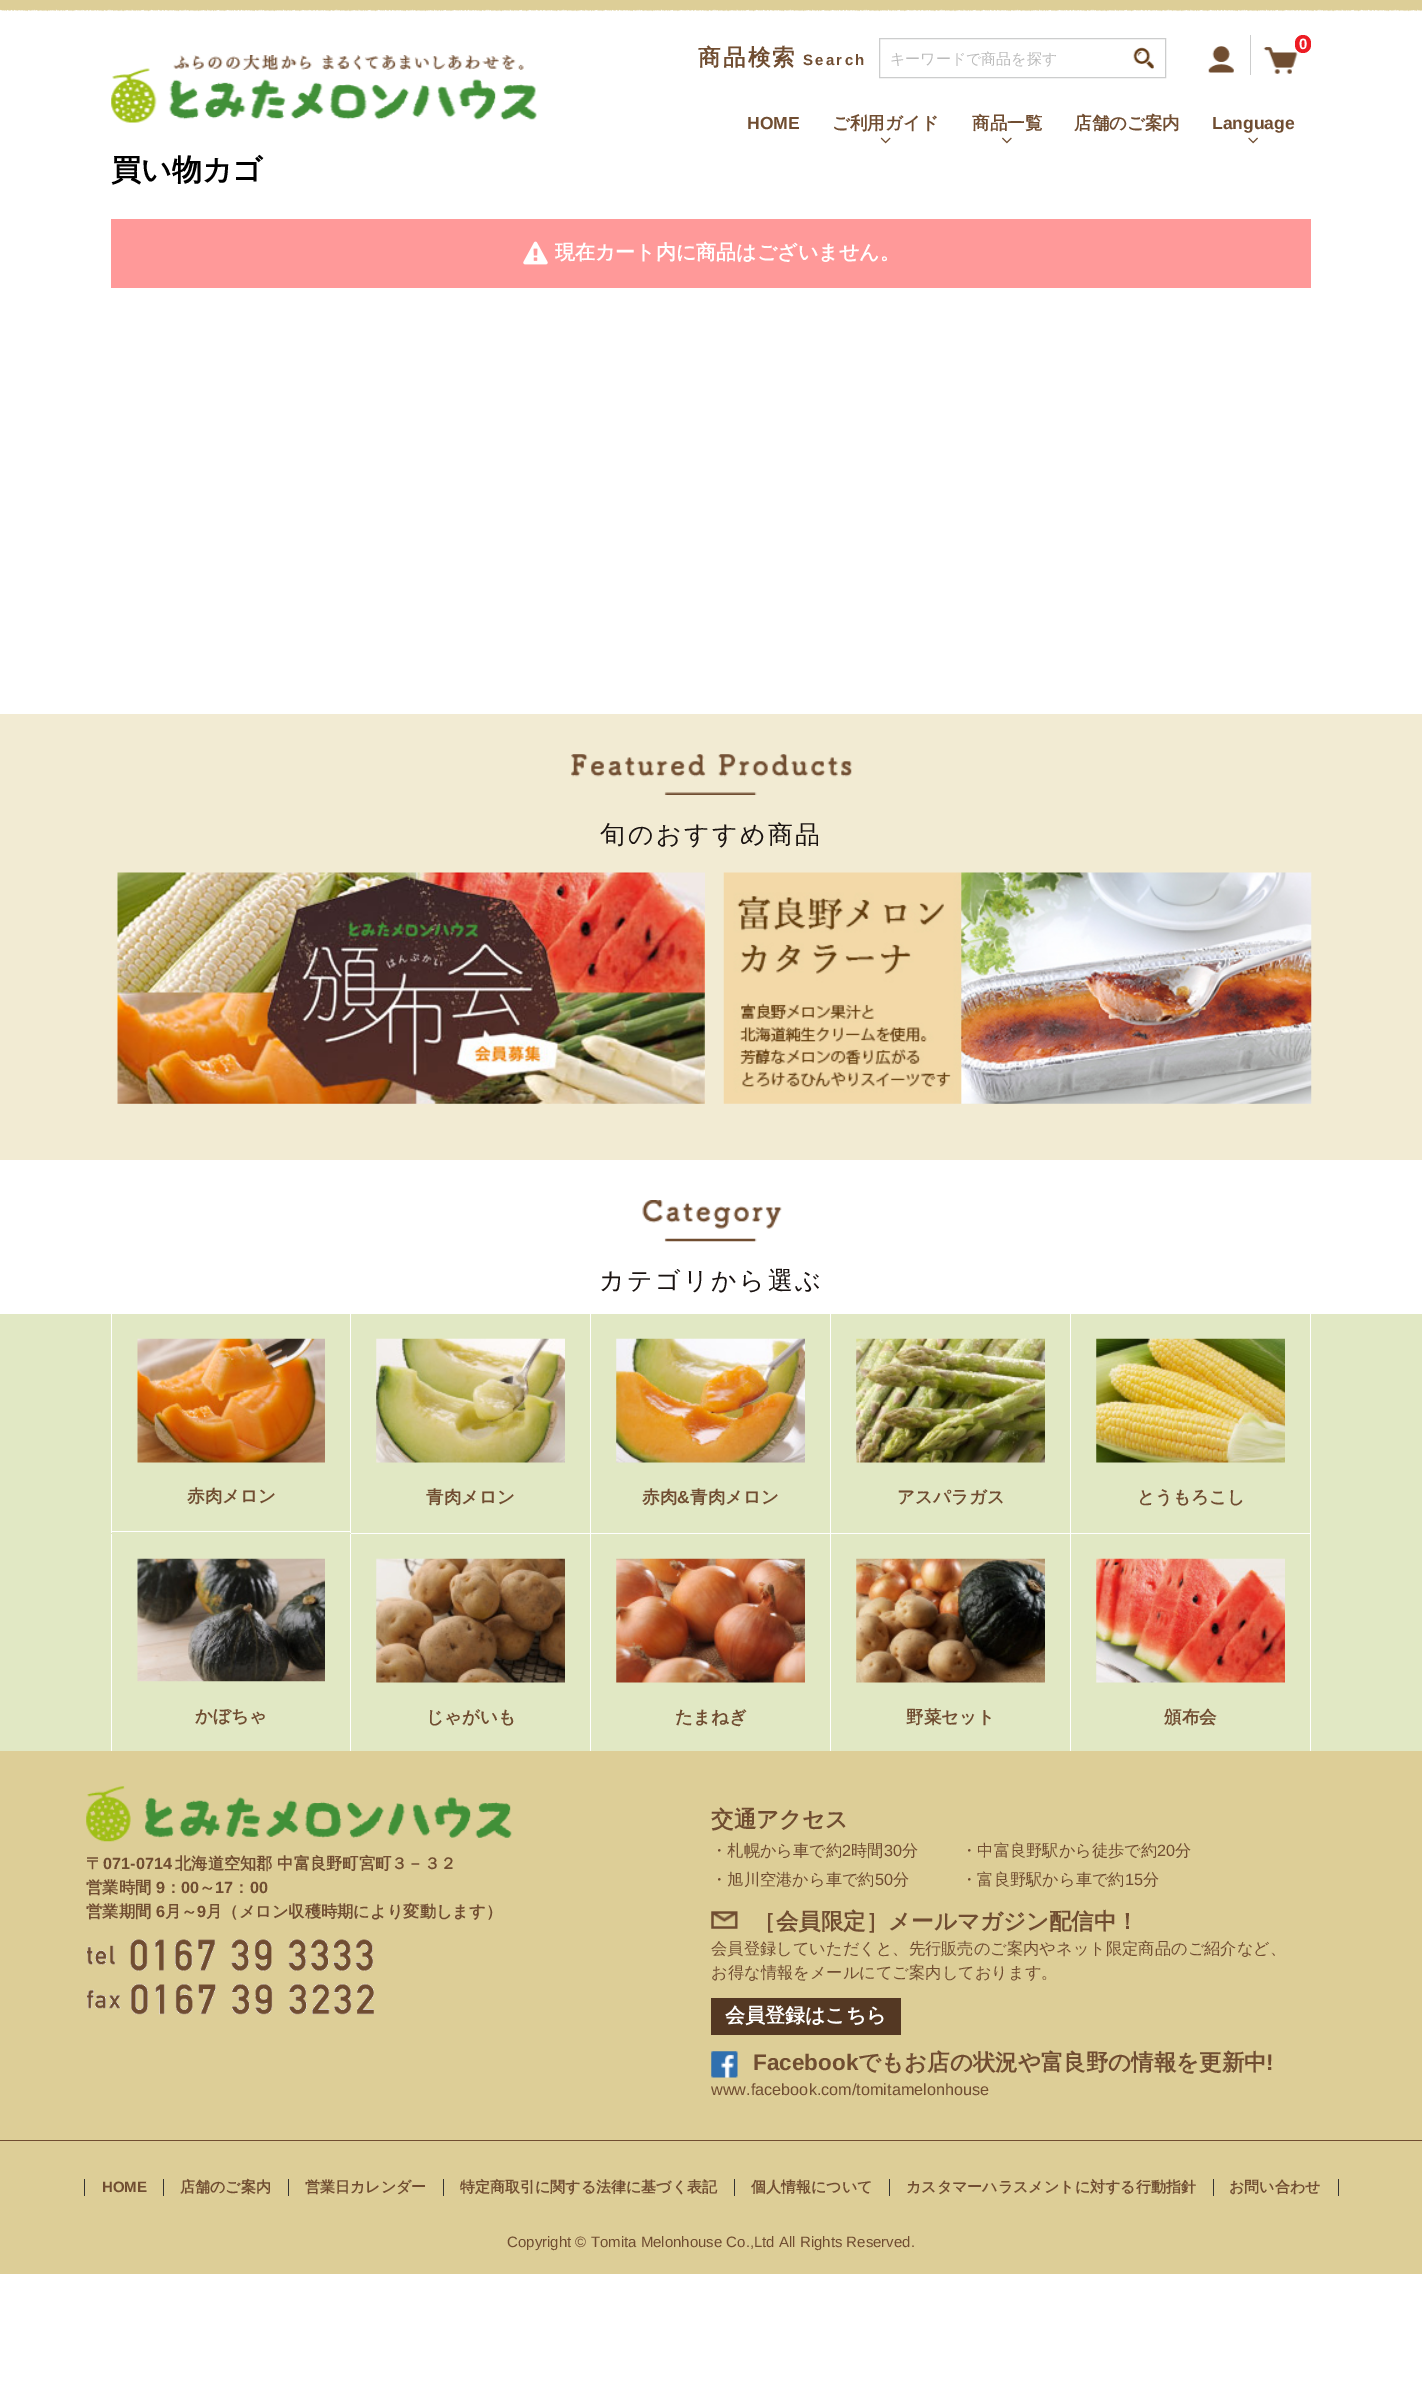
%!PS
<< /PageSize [1422 2387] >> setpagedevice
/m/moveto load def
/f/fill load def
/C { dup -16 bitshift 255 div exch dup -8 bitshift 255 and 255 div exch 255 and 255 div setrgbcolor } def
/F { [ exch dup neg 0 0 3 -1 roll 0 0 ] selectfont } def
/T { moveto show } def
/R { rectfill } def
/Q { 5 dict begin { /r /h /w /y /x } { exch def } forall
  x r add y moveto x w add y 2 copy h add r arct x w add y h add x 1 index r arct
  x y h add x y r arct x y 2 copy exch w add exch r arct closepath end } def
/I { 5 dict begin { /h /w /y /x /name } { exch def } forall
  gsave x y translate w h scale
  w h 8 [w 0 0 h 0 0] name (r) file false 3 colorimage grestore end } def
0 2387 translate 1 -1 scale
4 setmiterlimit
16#FFFFFF C
0 0 1422 2387 R
(1.rgb) 0 0 1422 12 I
(2.rgb) 173 55 351 15 I
(3.rgb) 111 68 426 55 I
16#CCCDCD C
1250 35 1 40 R
(4.rgb) 1208 46 26 27 I
(5.rgb) 1263 47 35 27 I
16#ED1C24 C
1295 35 16 18 8 Q f
/LiberationSans-Bold 15 F
16#FFFFFF C
(0) 1299 49 T
/WenQuanYiZenHei-Bold 22.5 F
16#704D31 C
698 65 m 2.25 0 (商品検索) ashow
/LiberationSans-Bold 15 F
803 65 m 2.25 0 (Search) ashow
16#CCCDCD C
879.5 38.5 286 39 rectstroke
/WenQuanYiZenHei-Medium 15 F
16#BBBBBB C
(キーワードで商品を探す) 890 64 T
(6.rgb) 1133 47 21 22 I
/LiberationSans-Bold 17.5 F
16#704D31 C
(HOME) 747 129 T
/WenQuanYiZenHei-Bold 17.5 F
(ご利用ガイド) 832 129 T
(7.rgb) 880 137 11 7 I
(商品一覧) 972 129 T
(8.rgb) 1002 137 10 7 I
(店舗のご案内) 1074 129 T
/LiberationSans-Bold 17.5 F
(Language) 1212 129 T
(9.rgb) 1248 137 10 7 I
/WenQuanYiZenHei-Bold 30 F
16#000000 C
(買い物カゴ) 111 180 T
16#FF9999 C
111 219 1200 69 R
(10.rgb) 523 241 25 24 I
/WenQuanYiZenHei-Bold 20 F
16#FFFFFF C
(現在カート内に商品はございません。) 555 259 T
16#F2EBD3 C
0 714 1422 446 R
(11.rgb) 571 754 281 41 I
/WenQuanYiZenHei-Medium 25 F
16#1A1311 C
600 843 m 2.5 0 (旬のおすすめ商品) ashow
(12.rgb) 117 872 588 232 I
(13.rgb) 723 872 589 232 I
(14.rgb) 642 1200 140 42 I
599 1289 m 2.5 0 (カテゴリから選ぶ) ashow
16#E1E8C4 C
0 1314 1422 437 R
16#FFFFFF C
350 1314 1 219 R
111 1531 240 1 R
111 1314 1 219 R
(15.rgb) 137 1338 188 125 I
/WenQuanYiZenHei-Bold 17.5 F
16#704D31 C
(赤肉メロン) 187 1502 T
16#FFFFFF C
590 1314 1 437 R
351 1533 240 1 R
(16.rgb) 376 1338 189 125 I
16#704D31 C
(青肉メロン) 426 1503 T
16#FFFFFF C
830 1314 1 437 R
591 1533 240 1 R
(17.rgb) 616 1338 189 125 I
16#704D31 C
(赤肉) 642 1503 T
/LiberationSans-Bold 17.5 F
(&) 677 1503 T
/WenQuanYiZenHei-Bold 17.5 F
(青肉メロン) 690 1503 T
16#FFFFFF C
1070 1314 1 437 R
831 1533 240 1 R
(18.rgb) 856 1338 189 125 I
16#704D31 C
(アスパラガス) 897 1503 T
16#FFFFFF C
1310 1314 1 437 R
1071 1533 240 1 R
(19.rgb) 1096 1338 189 125 I
16#704D31 C
(とうもろこし) 1137 1503 T
16#FFFFFF C
350 1534 1 217 R
111 1534 1 217 R
(20.rgb) 137 1558 188 124 I
16#704D31 C
(かぼちゃ) 195 1722 T
(21.rgb) 376 1558 189 125 I
(じゃがいも) 426 1723 T
(22.rgb) 616 1558 189 125 I
(たまねぎ) 675 1723 T
(23.rgb) 856 1558 189 125 I
(野菜セット) 906 1723 T
(24.rgb) 1096 1558 189 125 I
(頒布会) 1164 1723 T
16#DDCE97 C
0 1751 1422 389 R
(25.rgb) 86 1786 426 56 I
/WenQuanYiZenHei-Bold 16.25 F
16#704D31 C
(〒) 86 1869 T
/LiberationSans-Bold 16.25 F
(071-0714) 103 1869 T
/WenQuanYiZenHei-Bold 16.25 F
(北海道空知郡 中富良野町宮町３－３２) 175 1869 T
(営業時間) 86 1893 T
/LiberationSans-Bold 16.25 F
(9) 156 1893 T
/WenQuanYiZenHei-Bold 16.25 F
(：) 165 1893 T
/LiberationSans-Bold 16.25 F
(00) 181 1893 T
/WenQuanYiZenHei-Bold 16.25 F
(～) 199 1893 T
/LiberationSans-Bold 16.25 F
(17) 215 1893 T
/WenQuanYiZenHei-Bold 16.25 F
(：) 233 1893 T
/LiberationSans-Bold 16.25 F
(00) 250 1893 T
/WenQuanYiZenHei-Bold 16.25 F
(営業期間) 86 1917 T
/LiberationSans-Bold 16.25 F
(6) 156 1917 T
/WenQuanYiZenHei-Bold 16.25 F
(月～) 165 1917 T
/LiberationSans-Bold 16.25 F
(9) 197 1917 T
/WenQuanYiZenHei-Bold 16.25 F
(月（メロン収穫時期により変動します）) 206 1917 T
(26.rgb) 86 1939 287 33 I
(27.rgb) 87 1983 287 32 I
/WenQuanYiZenHei-Bold 22.5 F
(交通アクセス) 711 1827 T
/WenQuanYiZenHei-Medium 16.25 F
(・札幌から車で約) 711 1856 T
/LiberationSans-Regular 16.25 F
(2) 842 1856 T
/WenQuanYiZenHei-Medium 16.25 F
(時間) 851 1856 T
/LiberationSans-Regular 16.25 F
(30) 884 1856 T
/WenQuanYiZenHei-Medium 16.25 F
(分) 902 1856 T
(・中富良野駅から徒歩で約) 961 1856 T
/LiberationSans-Regular 16.25 F
(20) 1157 1856 T
/WenQuanYiZenHei-Medium 16.25 F
(分) 1175 1856 T
(・旭川空港から車で約) 711 1885 T
/LiberationSans-Regular 16.25 F
(50) 875 1885 T
/WenQuanYiZenHei-Medium 16.25 F
(分) 893 1885 T
(・富良野駅から車で約) 961 1885 T
/LiberationSans-Regular 16.25 F
(15) 1125 1885 T
/WenQuanYiZenHei-Medium 16.25 F
(分) 1143 1885 T
(28.rgb) 711 1911 27 18 I
/WenQuanYiZenHei-Bold 22.5 F
(［会員限定］メールマガジン配信中！) 753 1929 T
/WenQuanYiZenHei-Medium 16.25 F
(会員登録していただくと、先行販売のご案内やネット限定商品のご紹介など、) 711 1954 T
(お得な情報をメールにてご案内しております。) 711 1978 T
16#543823 C
711 1998 190 37 R
/WenQuanYiZenHei-Bold 20 F
16#FFFFFF C
(会員登録はこちら) 725 2022 T
(29.rgb) 711 2051 27 27 I
/LiberationSans-Bold 22.5 F
16#704D31 C
(Facebook) 753 2070 T
/WenQuanYiZenHei-Bold 22.5 F
(でもお店の状況や富良野の情報を更新中) 858 2070 T
/LiberationSans-Bold 22.5 F
(!) 1266 2070 T
/LiberationSans-Regular 16.25 F
(www.facebook.com/tomitamelonhouse) 711 2095 T
16#DDCE97 C
0 2141 1422 133 R
16#704D31 C
0 2140 1422 1 R
/LiberationSans-Bold 15 F
(HOME) 102 2192 T
16#333333 C
163 2179 1 17 R
84 2179 1 17 R
/WenQuanYiZenHei-Bold 15 F
16#704D31 C
(店舗のご案内) 180 2192 T
16#333333 C
288 2179 1 17 R
16#704D31 C
(営業日カレンダー) 305 2192 T
16#333333 C
443 2179 1 17 R
16#704D31 C
(特定商取引に関する法律に基づく表記) 460 2192 T
16#333333 C
734 2179 1 17 R
16#704D31 C
(個人情報について) 751 2192 T
16#333333 C
889 2179 1 17 R
16#704D31 C
(カスタマーハラスメントに対する行動指針) 906 2192 T
16#333333 C
1213 2179 1 17 R
16#704D31 C
(お問い合わせ) 1229 2192 T
16#333333 C
1338 2179 1 17 R
/LiberationSans-Regular 15 F
16#704D31 C
(Copyright © Tomita Melonhouse Co.,Ltd All Rights Reserved.) 507 2247 T
showpage
